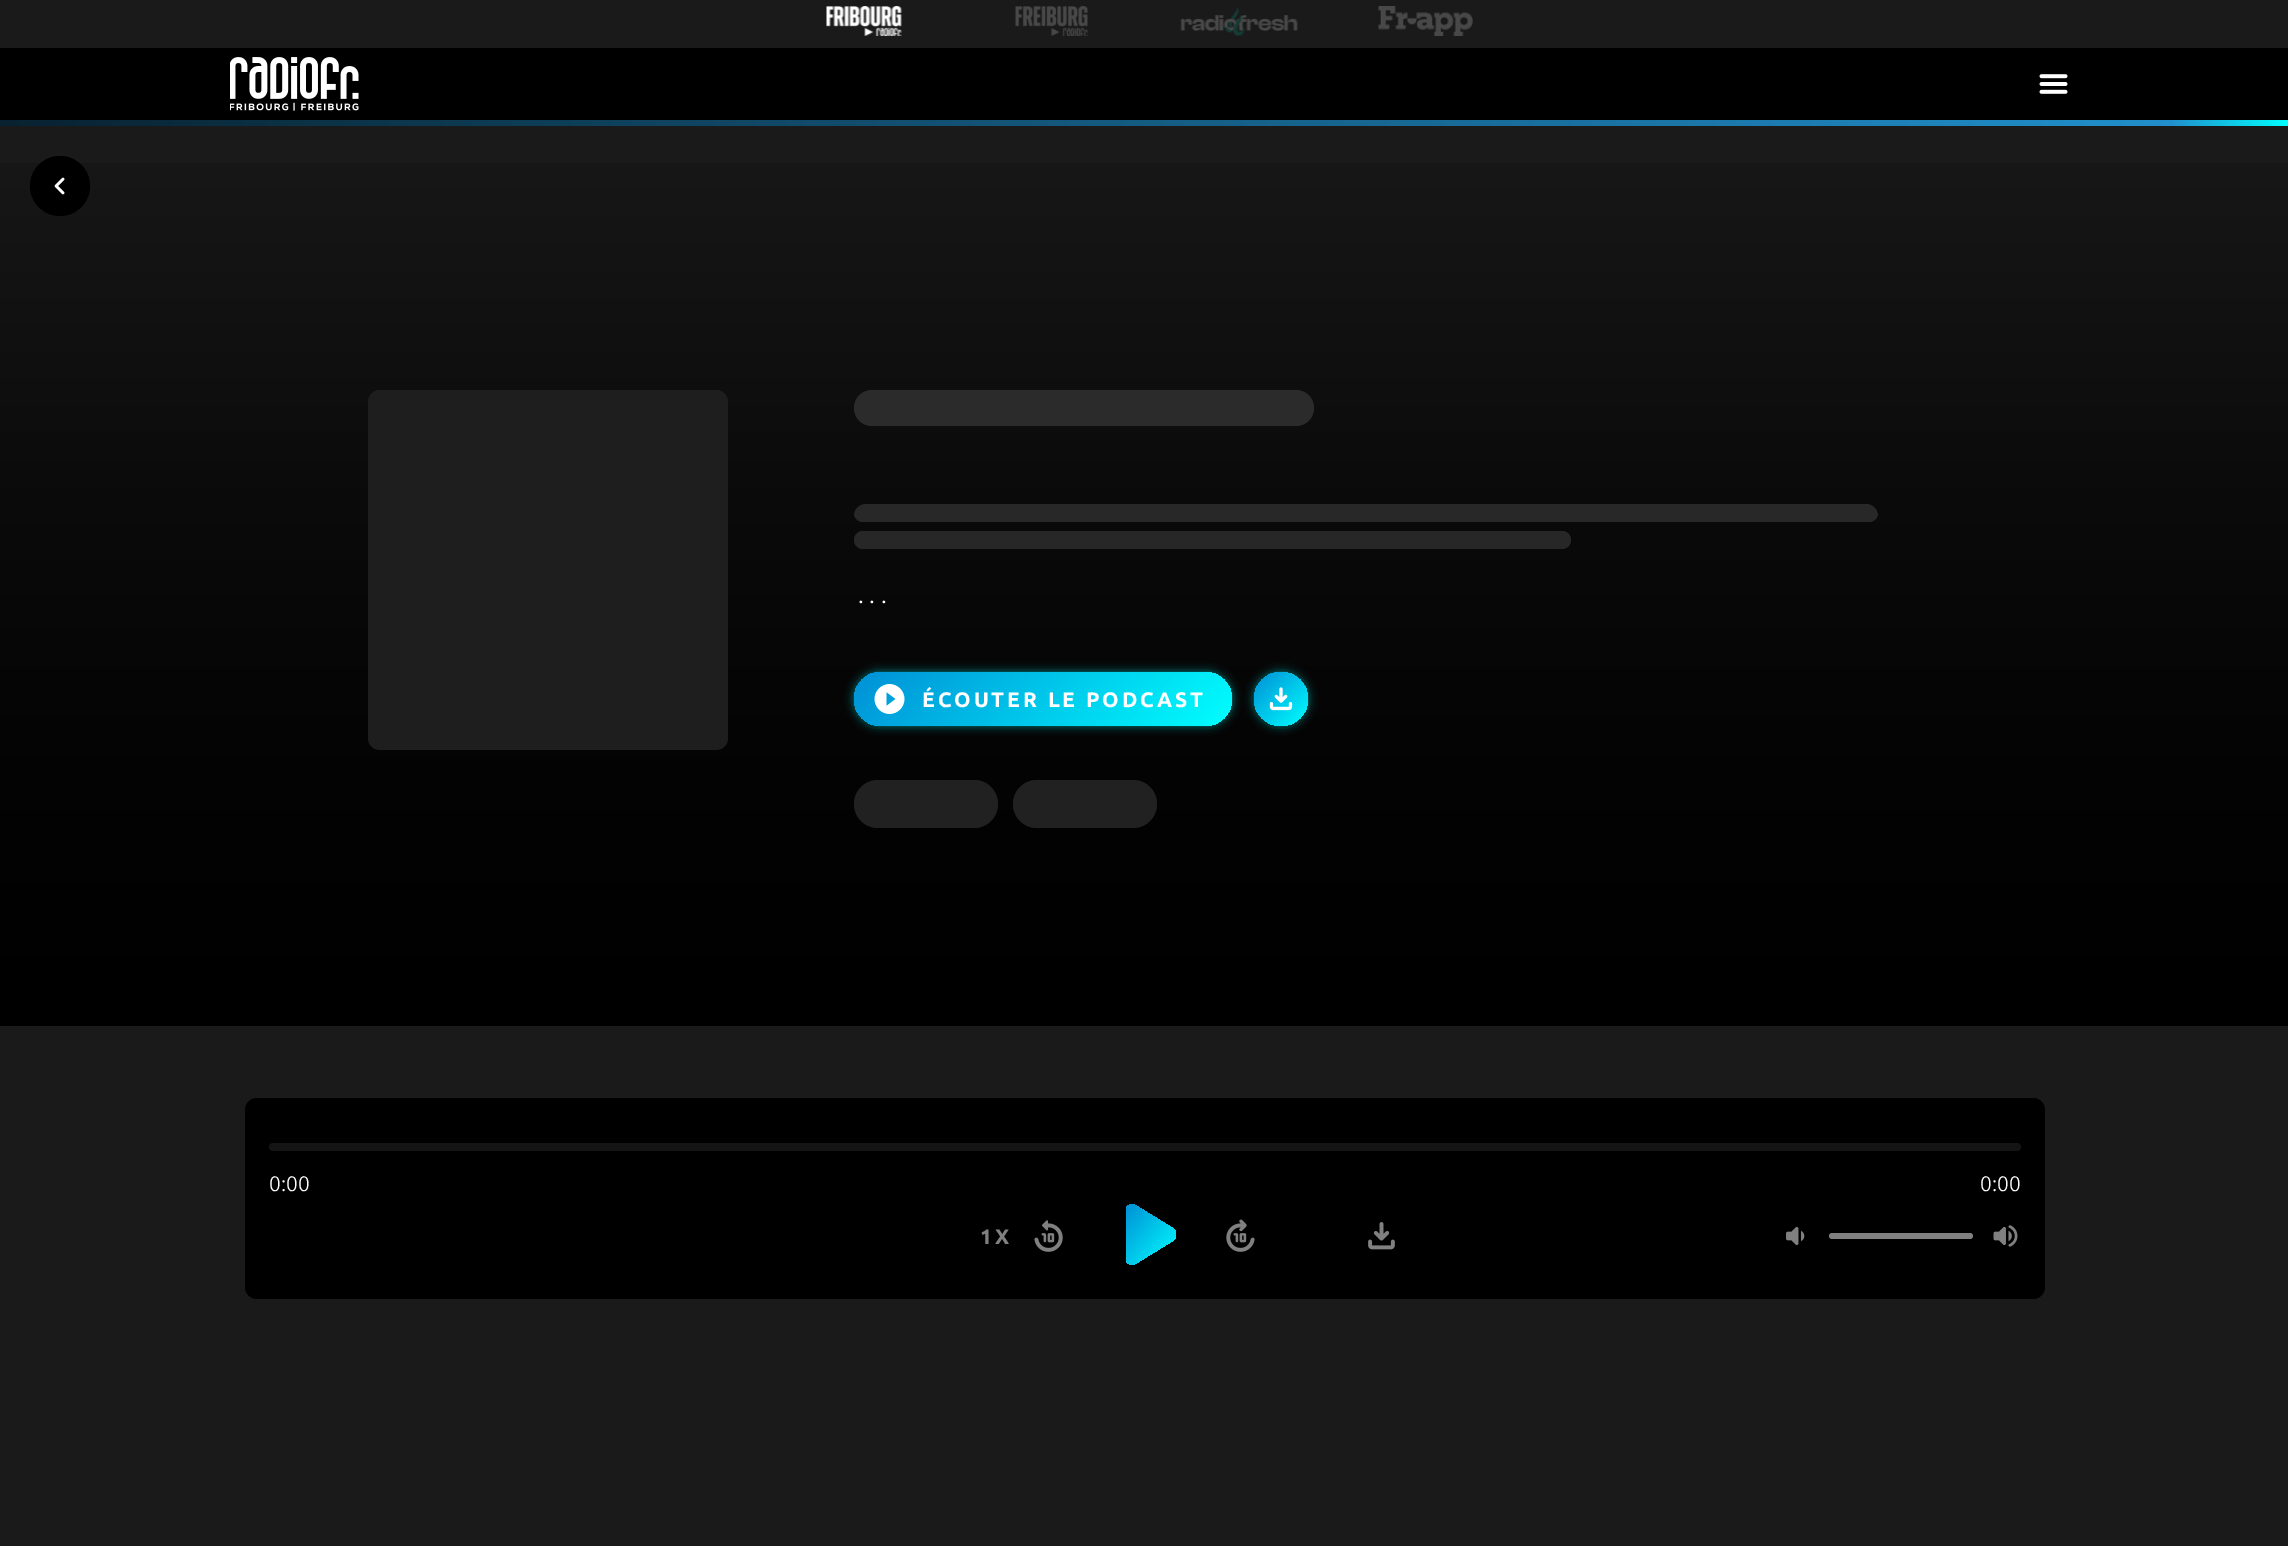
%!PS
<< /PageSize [2288 1546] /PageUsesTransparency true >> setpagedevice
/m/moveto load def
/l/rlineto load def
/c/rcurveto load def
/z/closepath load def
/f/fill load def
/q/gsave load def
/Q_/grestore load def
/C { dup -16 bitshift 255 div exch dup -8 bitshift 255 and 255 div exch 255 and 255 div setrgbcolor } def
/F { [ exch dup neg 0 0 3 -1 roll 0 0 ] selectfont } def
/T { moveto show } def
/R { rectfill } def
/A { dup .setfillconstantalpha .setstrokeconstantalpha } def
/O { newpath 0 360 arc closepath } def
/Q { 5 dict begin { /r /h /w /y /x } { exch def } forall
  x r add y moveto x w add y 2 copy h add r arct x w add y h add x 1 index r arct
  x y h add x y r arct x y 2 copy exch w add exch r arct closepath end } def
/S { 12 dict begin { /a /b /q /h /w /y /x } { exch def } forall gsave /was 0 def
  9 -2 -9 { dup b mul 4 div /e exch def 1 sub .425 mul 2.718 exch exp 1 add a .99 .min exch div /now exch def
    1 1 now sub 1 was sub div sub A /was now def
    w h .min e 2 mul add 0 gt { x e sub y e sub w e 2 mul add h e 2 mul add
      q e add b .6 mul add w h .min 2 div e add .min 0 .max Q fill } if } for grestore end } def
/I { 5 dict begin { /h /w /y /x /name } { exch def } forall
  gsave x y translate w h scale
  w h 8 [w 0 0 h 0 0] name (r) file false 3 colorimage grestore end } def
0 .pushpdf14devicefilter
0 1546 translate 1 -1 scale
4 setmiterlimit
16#1A1A1A C
0 0 2288 1546 R
(1.rgb) 826 6 76 30 I
(2.rgb) 1015 6 73 30 I
(3.rgb) 1180 7 118 29 I
(4.rgb) 1378 6 95 30 I
16#000000 C
0 48 2288 72 R
(5.rgb) 230 57 129 54 I
(6.rgb) 2039 74 29 20 I
q 0 120 m 2288 0 l 0 6 l -2288 0 l z clip newpath
<< /ShadingType 2 /ColorSpace /DeviceRGB /Coords [-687 123 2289 123] /Extend [true true] /Function << /FunctionType 3 /Domain [0 1] /Functions [<< /FunctionType 2 /Domain [0 1] /C0 [0 0 0] /C1 [.129 .561 .796] /N 1 >> << /FunctionType 2 /Domain [0 1] /C0 [.129 .561 .796] /C1 [0 1 1] /N 1 >>] /Bounds [.96] /Encode [0 1 0 1] >> >> shfill Q_
q 0 163 m 2288 0 l 0 863 l -2288 0 l z clip newpath
<< /ShadingType 2 /ColorSpace /DeviceRGB /Coords [1145 126 1145 1026] /Extend [true true] /Function << /FunctionType 3 /Domain [0 1] /Functions [<< /FunctionType 2 /Domain [0 1] /C0 [.098 .098 .098] /C1 [.051 .051 .051] /N 1 >> << /FunctionType 2 /Domain [0 1] /C0 [.051 .051 .051] /C1 [.016 .016 .016] /N 1 >> << /FunctionType 2 /Domain [0 1] /C0 [.016 .016 .016] /C1 [0 0 0] /N 1 >>] /Bounds [.33 .67] /Encode [0 1 0 1 0 1] >> >> shfill Q_
60 186 30 O f
(7.rgb) 54 177 11 18 I
16#1E1E1E C
368 390 360 360 12 Q f
16#2B2B2B C
854 390 460 36 18 Q f
16#282828 C
866 504 m 1000 0 l 6.5 0 12 5.5 12 12 c 0 -3 l 0 5 -4 9 -9 9 c -1006 0 l -5 0 -9 -4 -9 -9 c 0 3 l 0 -6.5 5.5 -12 12 -12 c z f
16#272727 C
854 531 717 18 9 Q f
/Ubuntu-Light 24 F
16#FFFFFF C
(· · ·) 858 609 T
16#00FFFF C
854 672 378 54 27 4.5 .5 S
q 854 672 378 54 27 Q clip newpath
<< /ShadingType 2 /ColorSpace /DeviceRGB /Coords [935 591 1151 807] /Extend [true true] /Function << /FunctionType 2 /Domain [0 1] /C0 [0 .565 .839] /C1 [0 1 1] /N 1 >> >> shfill Q_
(8.rgb) 874 684 31 30 I
/Ubuntu-Bold 21 F
16#FFFFFF C
922 707 m 2.9 0 (ÉCOUTER LE PODCAST) ashow
16#00FFFF C
1254 672 54 54 27 4.5 .5 S
q 1281 699 27 O clip newpath
<< /ShadingType 2 /ColorSpace /DeviceRGB /Coords [1254 672 1308 726] /Extend [true true] /Function << /FunctionType 2 /Domain [0 1] /C0 [0 .565 .839] /C1 [0 1 1] /N 1 >> >> shfill Q_
(9.rgb) 1269 687 24 24 I
16#212121 C
854 780 144 48 24 Q f
1013 780 144 48 24 Q f
16#000000 C
245 1098 1800 201 12 Q f
16#141414 C
269 1143 1752 8 4 Q f
/Ubuntu-Light 21 F
16#FFFFFF C
(0:00) 269 1191 T
(0:00) 1980 1191 T
/Ubuntu-Bold 21 F
16#808080 C
980 1244 m 2.9 0 (1X) ashow
(10.rgb) 1034 1220 29 32 I
q 1135 1264 m -2 1 -4 1 -6 0 c -2 -1 -3 -3 -3 -5 c 0 -49 l 0 -2 1 -4 3 -5 c 2 -1 4 -1 6 0 c 39 24 l 1 2 2 3 2 5 c 0 3 -1 4 -2 6 c z clip newpath
<< /ShadingType 2 /ColorSpace /DeviceRGB /Coords [1126 1204 1186 1253] /Extend [true true] /Function << /FunctionType 2 /Domain [0 1] /C0 [0 .565 .839] /C1 [0 1 1] /N 1 >> >> shfill Q_
(11.rgb) 1226 1219 29 33 I
(12.rgb) 1368 1222 27 28 I
(13.rgb) 1786 1226 19 20 I
1829 1233 144 6 3 Q f
(14.rgb) 1993 1225 25 22 I
.poppdf14devicefilter showpage
